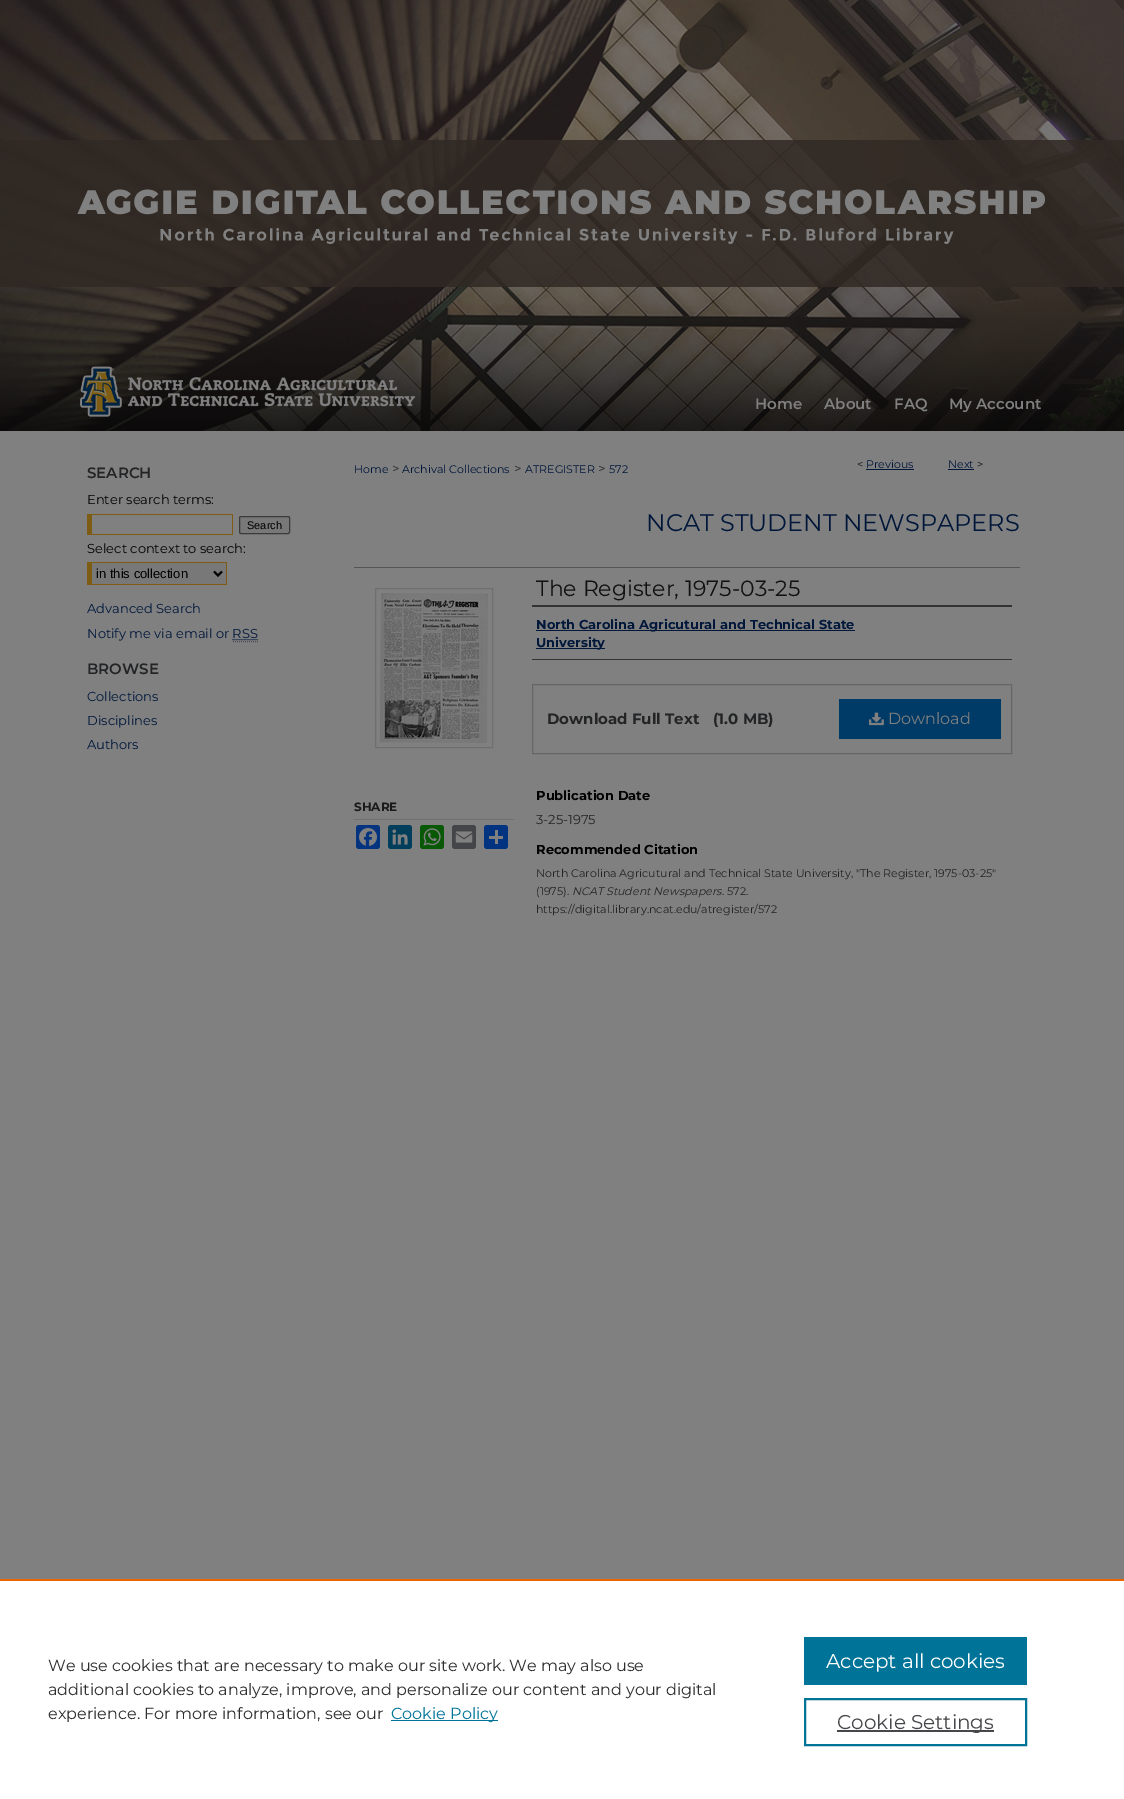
%!PS
<< /PageSize [1124 1799] >> setpagedevice
/m/moveto load def
/l/rlineto load def
/f/fill load def
/s/stroke load def
/q/gsave load def
/Q_/grestore load def
/w/setlinewidth load def
/C { dup -16 bitshift 255 div exch dup -8 bitshift 255 and 255 div exch 255 and 255 div setrgbcolor } def
/F { [ exch dup neg 0 0 3 -1 roll 0 0 ] selectfont } def
/T { moveto show } def
/R { rectfill } def
/Q { 5 dict begin { /r /h /w /y /x } { exch def } forall
  x r add y moveto x w add y 2 copy h add r arct x w add y h add x 1 index r arct
  x y h add x y r arct x y 2 copy exch w add exch r arct closepath end } def
/I { 5 dict begin { /h /w /y /x /name } { exch def } forall
  gsave x y translate w h scale
  w h 8 [w 0 0 h 0 0] name (r) file false 3 colorimage grestore end } def
0 1799 translate 1 -1 scale
4 setmiterlimit
16#808080 C
0 0 1124 1799 R
(1.rgb) 0 0 1124 431 I
(2.rgb) 77 189 968 55 I
(3.rgb) 80 366 335 51 I
/Montserrat-SemiBold 15 F
(Home) 755 409 T
(About) 824 409 T
(FAQ) 894 409 T
(My Account) 949 409 T
16#232425 C
(SEARCH) 87 478 T
/Montserrat-Regular 13 F
16#000000 C
(Enter search terms:) 87 504 T
16#7F5C14 C
87 514 146 1 R
232 514 1 21 R
87 534 146 1 R
87 514 5 21 R
16#787878 C
239.5 516.5 50 17 1.5 Q q f Q_
16#3B3B3B C
s
/LiberationSans-Regular 11 F
16#000000 C
(Search) 247 529 T
/Montserrat-Regular 13 F
(Select context to search:) 87 553 T
16#787878 C
92 563 134 21 R
16#7F5C14 C
87 562 140 1 R
226 562 1 23 R
87 584 140 1 R
87 562 5 23 R
16#000000 C
2 w
214 571.5 m 4 4 l 4 -4 l s
/LiberationSans-Regular 13 F
(in this collection) 96 578 T
/Montserrat-Regular 13 F
16#00173A C
(Advanced Search) 87 613 T
(Notify me via email or RSS) 87 638 T
1 w
[1 1] 0 setdash
232.5 639.5 m 25.5 0 l s
16#4D4D4D C
233 641.5 m 25 0 l s
/Montserrat-SemiBold 15 F
16#232425 C
(BROWSE) 87 674 T
/Montserrat-Regular 13 F
16#00173A C
(Collections) 87 701 T
(Disciplines) 87 725 T
(Authors) 87 749 T
/Montserrat-Regular 11 F
(Home) 354 473 T
/Montserrat-Regular 13 F
16#232425 C
(>) 392 473 T
/Montserrat-Regular 11 F
16#00173A C
(Archival Collections) 402 473 T
/Montserrat-Regular 13 F
16#232425 C
(>) 514 473 T
/Montserrat-Regular 11 F
16#00173A C
(ATREGISTER) 525 473 T
/Montserrat-Regular 13 F
16#232425 C
(>) 598 473 T
/Montserrat-Regular 11 F
16#00173A C
(572) 609 473 T
16#111111 C
(<) 857 468 T
16#00173A C
(Previous) 866 468 T
866 469 48 1 R
(Next) 948 468 T
948 469 26 1 R
16#111111 C
(>) 977 468 T
/Montserrat-Regular 24 F
16#00173A C
(NCAT STUDENT NEWSPAPERS) 646 531 T
16#6F6F6F C
[] 0 setdash
375.5 588.5 117 159 rectstroke
(4.rgb) 380 593 108 150 I
354 819 160 1 R
/Montserrat-Bold 12 F
16#1A1A1A C
(SHARE) 354 811 T
16#043380 C
356 825 24 24 3 Q f
(5.rgb) 359 828 18 18 I
16#003E5B C
388 825 24 24 3 Q f
(6.rgb) 392 829 16 16 I
16#095805 C
420 825 24 24 3 Q f
(7.rgb) 423 828 18 18 I
16#444548 C
452 825 24 24 3 Q f
(8.rgb) 455 831 18 12 I
16#013380 C
484 825 24 24 3 Q f
16#808080 C
495 830 3 14 R
489 836 14 3 R
16#555555 C
354 567 666 1 R
/Montserrat-Regular 22 F
16#111111 C
(The Register, 1975-03-25) 536 596 T
16#333333 C
532 605 480 2 R
532 659 480 1 R
16#00173A C
536 630 319 1 R
/Montserrat-Bold 13 F
(North Carolina Agricutural and Technical State) 536 629 T
536 648 69 1 R
(University) 536 647 T
16#666666 C
532.5 684.5 479 69 rectstroke
/Montserrat-Bold 15 F
16#232425 C
(Download Full Text) 547 724 T
(\(1.0 MB\)) 713 724 T
16#003A66 C
839 699 162 40 R
(9.rgb) 869 712 15 14 I
/Montserrat-Regular 16 F
16#808080 C
(Download) 888 724 T
/Montserrat-Bold 13 F
16#000000 C
(Publication Date) 536 800 T
/Montserrat-Regular 13 F
16#232425 C
(3-25-1975) 536 824 T
/Montserrat-Bold 13 F
16#000000 C
(Recommended Citation) 536 854 T
/Montserrat-Regular 11 F
16#232425 C
(North Carolina Agricutural and Technical State University, "The Register, 1975-03-25") 536 877 T
(\(1975\).) 536 895 T
/Montserrat-Italic 11 F
(NCAT Student Newspapers) 572 895 T
/Montserrat-Regular 11 F
(. 572.) 722 895 T
(https://digital.library.ncat.edu/atregister/572) 536 913 T
16#FFFFFF C
0 1581 1124 218 R
16#EB6500 C
0 1579 1124 2 R
/Montserrat-Regular 16 F
16#2E2E2E C
(We use cookies that are necessary to make our site work. We may also use) 48 1671 T
(additional cookies to analyze, improve, and personalize our content and your digital) 48 1695 T
(experience. For more information, see our) 48 1719 T
16#007398 C
391 1720 107 1 R
(Cookie Policy) 391 1719 T
804 1637 223 48 R
/Montserrat-Regular 20 F
16#FFFFFF C
(Accept all cookies) 826 1668 T
16#007398 C
2 w
805 1699 221 46 rectstroke
16#46474A C
837 1730 157 2 R
(Cookie Settings) 837 1729 T
showpage
